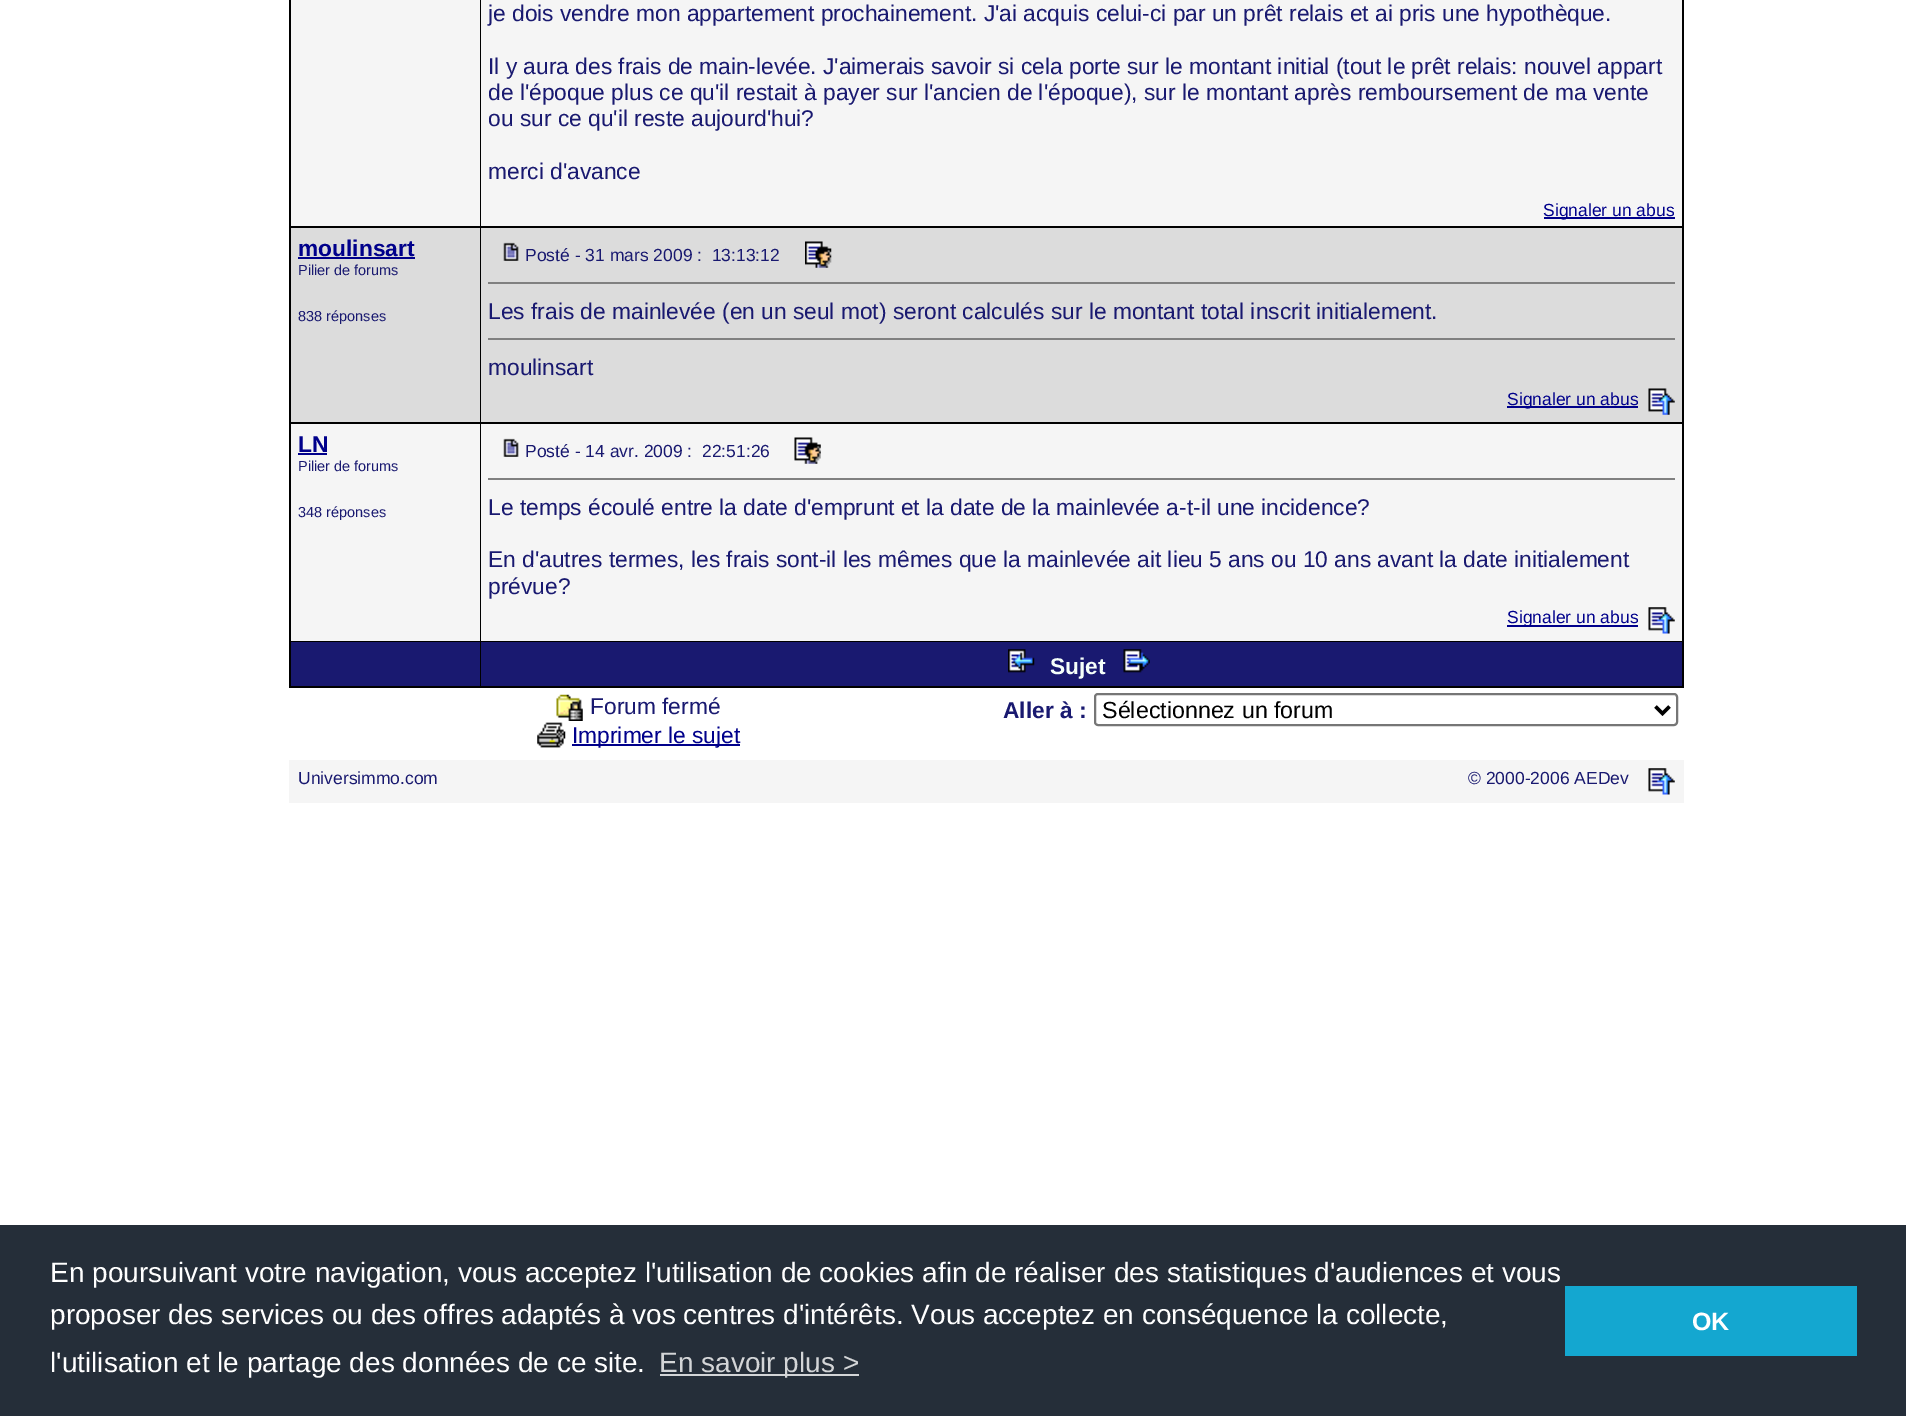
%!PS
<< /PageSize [1906 1416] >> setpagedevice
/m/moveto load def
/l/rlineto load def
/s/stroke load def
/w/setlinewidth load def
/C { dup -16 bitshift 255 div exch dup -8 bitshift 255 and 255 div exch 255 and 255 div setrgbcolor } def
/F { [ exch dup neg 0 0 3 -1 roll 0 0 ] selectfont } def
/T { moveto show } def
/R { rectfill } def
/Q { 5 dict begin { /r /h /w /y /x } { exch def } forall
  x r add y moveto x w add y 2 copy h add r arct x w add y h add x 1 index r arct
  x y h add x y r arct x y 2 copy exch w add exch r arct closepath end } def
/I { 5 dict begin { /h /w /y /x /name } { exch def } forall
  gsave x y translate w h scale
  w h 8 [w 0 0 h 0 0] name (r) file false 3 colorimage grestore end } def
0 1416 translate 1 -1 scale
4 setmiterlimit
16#FFFFFF C
0 0 1906 1416 R
16#000000 C
289 0 1395 688 R
16#F5F5F5 C
291 0 189 226 R
481 0 1201 226 R
/LiberationSans-Regular 22.75 F
16#191970 C
(je dois vendre mon appartement prochainement. J'ai acquis celui-ci par un prêt relais et ai pris une hypothèque.) 488 21 T
(Il y aura des frais de main-levée. J'aimerais savoir si cela porte sur le montant initial \(tout le prêt relais: nouvel appart) 488 74 T
(de l'époque plus ce qu'il restait à payer sur l'ancien de l'époque\), sur le montant après remboursement de ma vente) 488 100 T
(ou sur ce qu'il reste aujourd'hui?) 488 126 T
(merci d'avance) 488 179 T
16#00008B C
1544 217 131 2 R
/LiberationSans-Regular 17.5 F
(Signaler un abus) 1543 216 T
16#DCDCDC C
291 228 189 194 R
/LiberationSans-Bold 22.75 F
16#00008B C
(moulinsart) 298 256 T
298 257 117 2 R
/LiberationSans-Regular 14.5 F
16#191970 C
(Pilier de forums) 298 275 T
(838 réponses) 298 321 T
16#DCDCDC C
481 228 1201 194 R
(1.rgb) 503 242 16 19 I
/LiberationSans-Regular 17.5 F
16#191970 C
(Posté - 31 mars 2009 :  13:13:12) 525 261 T
(2.rgb) 805 241 27 27 I
16#808080 C
488 282 1187 2 R
/LiberationSans-Regular 22.75 F
16#191970 C
(Les frais de mainlevée \(en un seul mot\) seront calculés sur le montant total inscrit initialement.) 488 319 T
16#808080 C
488 338 1187 2 R
16#191970 C
(moulinsart) 488 375 T
16#00008B C
1507 406 131 2 R
/LiberationSans-Regular 17.5 F
(Signaler un abus) 1507 405 T
(3.rgb) 1648 388 27 27 I
16#F5F5F5 C
291 424 189 217 R
/LiberationSans-Bold 22.75 F
16#00008B C
(LN) 298 452 T
298 453 29 2 R
/LiberationSans-Regular 14.5 F
16#191970 C
(Pilier de forums) 298 471 T
(348 réponses) 298 517 T
16#F5F5F5 C
481 424 1201 217 R
(4.rgb) 503 438 16 19 I
/LiberationSans-Regular 17.5 F
16#191970 C
(Posté - 14 avr. 2009 :  22:51:26) 525 457 T
(5.rgb) 794 437 27 27 I
16#808080 C
488 478 1187 2 R
/LiberationSans-Regular 22.75 F
16#191970 C
(Le temps écoulé entre la date d'emprunt et la date de la mainlevée a-t-il une incidence?) 488 515 T
(En d'autres termes, les frais sont-il les mêmes que la mainlevée ait lieu 5 ans ou 10 ans avant la date initialement) 488 567 T
(prévue?) 488 594 T
16#00008B C
1507 625 131 2 R
/LiberationSans-Regular 17.5 F
(Signaler un abus) 1507 623 T
(6.rgb) 1648 607 27 27 I
16#191970 C
291 642 189 44 R
481 642 1201 44 R
(7.rgb) 1008 649 27 24 I
/LiberationSans-Bold 22.75 F
16#F5FFFA C
(Sujet) 1050 674 T
(8.rgb) 1123 649 27 24 I
(9.rgb) 556 694 27 27 I
/LiberationSans-Regular 22.75 F
16#191970 C
(Forum fermé) 590 714 T
(10.rgb) 537 722 29 26 I
16#00008B C
572 744 168 2 R
(Imprimer le sujet) 572 743 T
/LiberationSans-Bold 22.75 F
16#191970 C
(Aller à :) 1003 718 T
16#767676 C
2 w
1095 694 582 31 3 Q s
16#000000 C
3.5 w
1655.5 706.5 m 7 7 l 7 -7 l s
/LiberationSans-Regular 23.25 F
(Sélectionnez un forum) 1102 718 T
16#F5F5F5 C
289 760 1395 43 R
/LiberationSans-Regular 17.5 F
16#191970 C
(Universimmo.com) 298 784 T
(© 2000-2006 AEDev) 1468 784 T
(6.rgb) 1648 768 27 27 I
16#252E39 C
0 1225 1906 191 R
/LiberationSans-Regular 28 F
16#FFFFFF C
(En poursuivant votre navigation, vous acceptez l'utilisation de cookies afin de réaliser des statistiques d'audiences et vous) 50 1282 T
(proposer des services ou des offres adaptés à vos centres d'intérêts. Vous acceptez en conséquence la collecte,) 50 1324 T
(l'utilisation et le partage des données de ce site.) 50 1372 T
16#D3D5D7 C
660 1374 199 2 R
(En savoir plus >) 659 1372 T
16#14A7D0 C
1565 1286 292 70 R
/LiberationSans-Bold 25 F
16#FFFFFF C
(OK) 1692 1330 T
showpage
